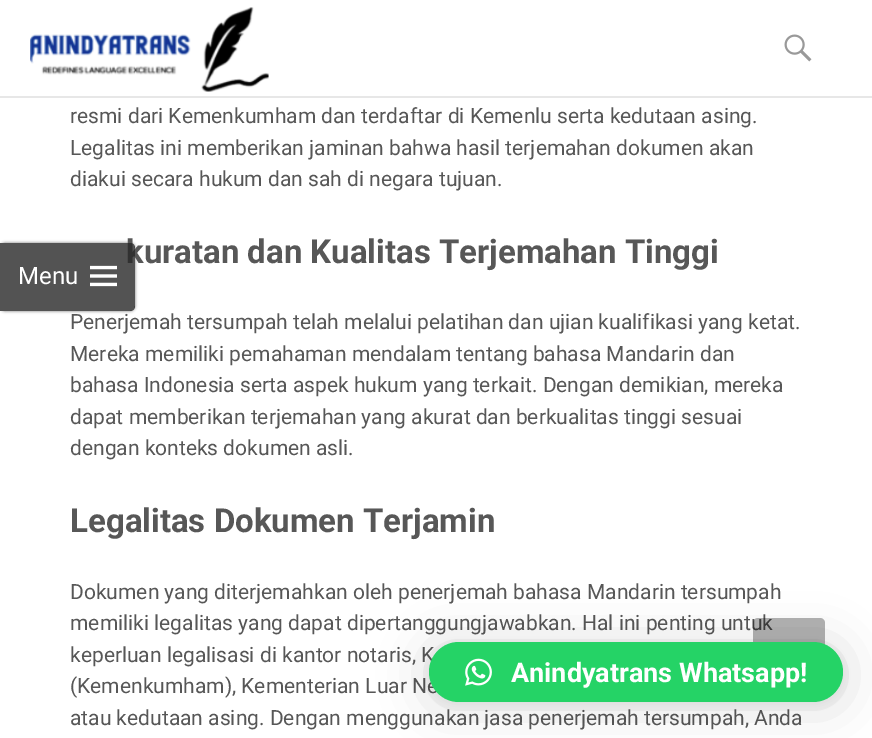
%!PS
<< /PageSize [872 738] /PageUsesTransparency true >> setpagedevice
/m/moveto load def
/l/rlineto load def
/c/rcurveto load def
/z/closepath load def
/f/fill load def
/q/gsave load def
/Q_/grestore load def
/C { dup -16 bitshift 255 div exch dup -8 bitshift 255 and 255 div exch 255 and 255 div setrgbcolor } def
/F { [ exch dup neg 0 0 3 -1 roll 0 0 ] selectfont } def
/T { moveto show } def
/R { rectfill } def
/A { dup .setfillconstantalpha .setstrokeconstantalpha } def
/Q { 5 dict begin { /r /h /w /y /x } { exch def } forall
  x r add y moveto x w add y 2 copy h add r arct x w add y h add x 1 index r arct
  x y h add x y r arct x y 2 copy exch w add exch r arct closepath end } def
/S { 12 dict begin { /a /b /q /h /w /y /x } { exch def } forall gsave /was 0 def
  9 -2 -9 { dup b mul 4 div /e exch def 1 sub .425 mul 2.718 exch exp 1 add a .99 .min exch div /now exch def
    1 1 now sub 1 was sub div sub A /was now def
    w h .min e 2 mul add 0 gt { x e sub y e sub w e 2 mul add h e 2 mul add
      q e add b .6 mul add w h .min 2 div e add .min 0 .max Q fill } if } for grestore end } def
/I { 5 dict begin { /h /w /y /x /name } { exch def } forall
  gsave x y translate w h scale
  w h 8 [w 0 0 h 0 0] name (r) file false 3 colorimage grestore end } def
0 .pushpdf14devicefilter
0 738 translate 1 -1 scale
4 setmiterlimit
16#FFFFFF C
0 0 872 738 R
16#E7E7E7 C
0 96 872 2 R
(1.rgb) 30 7 239 85 I
(2.rgb) 784 34 28 28 I
q
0 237 m 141 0 l 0 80 l -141 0 l z 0 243 m 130 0 l 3 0 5 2 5 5 c 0 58 l 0 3 -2 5 -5 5 c -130 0 l z eoclip newpath
16#323232 C
0 243 135 68 5 1.5 .64 S
Q_
/Roboto-Bold 33 F
16#575757 C
(kuratan dan Kualitas Terjemahan Tinggi) 126 263 T
0.8 A
16#282828 C
0 243 m 130 0 l 3 0 5 2 5 5 c 0 58 l 0 3 -2 5 -5 5 c -130 0 l z f
/Roboto-Regular 24 F
1 A
16#FFFFFF C
(Menu) 18 284 T
(3.rgb) 90 265 27 22 I
/Roboto-Regular 21 F
16#575757 C
(resmi dari Kemenkumham dan terdaftar di Kemenlu serta kedutaan asing.) 70 123 T
(Legalitas ini memberikan jaminan bahwa hasil terjemahan dokumen akan) 70 155 T
(diakui secara hukum dan sah di negara tujuan.) 70 186 T
(Penerjemah tersumpah telah melalui pelatihan dan ujian kualifikasi yang ketat.) 70 329 T
(Mereka memiliki pemahaman mendalam tentang bahasa Mandarin dan) 70 361 T
(bahasa Indonesia serta aspek hukum yang terkait. Dengan demikian, mereka) 70 392 T
(dapat memberikan terjemahan yang akurat dan berkualitas tinggi sesuai) 70 424 T
(dengan konteks dokumen asli.) 70 455 T
/Roboto-Bold 33 F
(Legalitas Dokumen Terjamin) 70 532 T
/Roboto-Regular 21 F
(Dokumen yang diterjemahkan oleh penerjemah bahasa Mandarin tersumpah) 70 599 T
(memiliki legalitas yang dapat dipertanggungjawabkan. Hal ini penting untuk) 70 630 T
(keperluan legalisasi di kantor notaris, K) 70 662 T
(\(Kemenkumham\), Kementerian Luar Ne) 70 693 T
(atau kedutaan asing. Dengan menggunakan jasa penerjemah tersumpah, Anda) 70 725 T
0.3 A
16#000000 C
753 618 72 72 5 Q f
1 A
429 645 414 60 30 24 .16 S
429 644 414 60 30 4.5 .06 S
16#25D366 C
429 642 414 60 30 Q f
(4.rgb) 465 658 27 28 I
/Roboto-Bold 27 F
16#FFFFFF C
(Anindyatrans Whatsapp!) 511 682 T
.poppdf14devicefilter showpage
